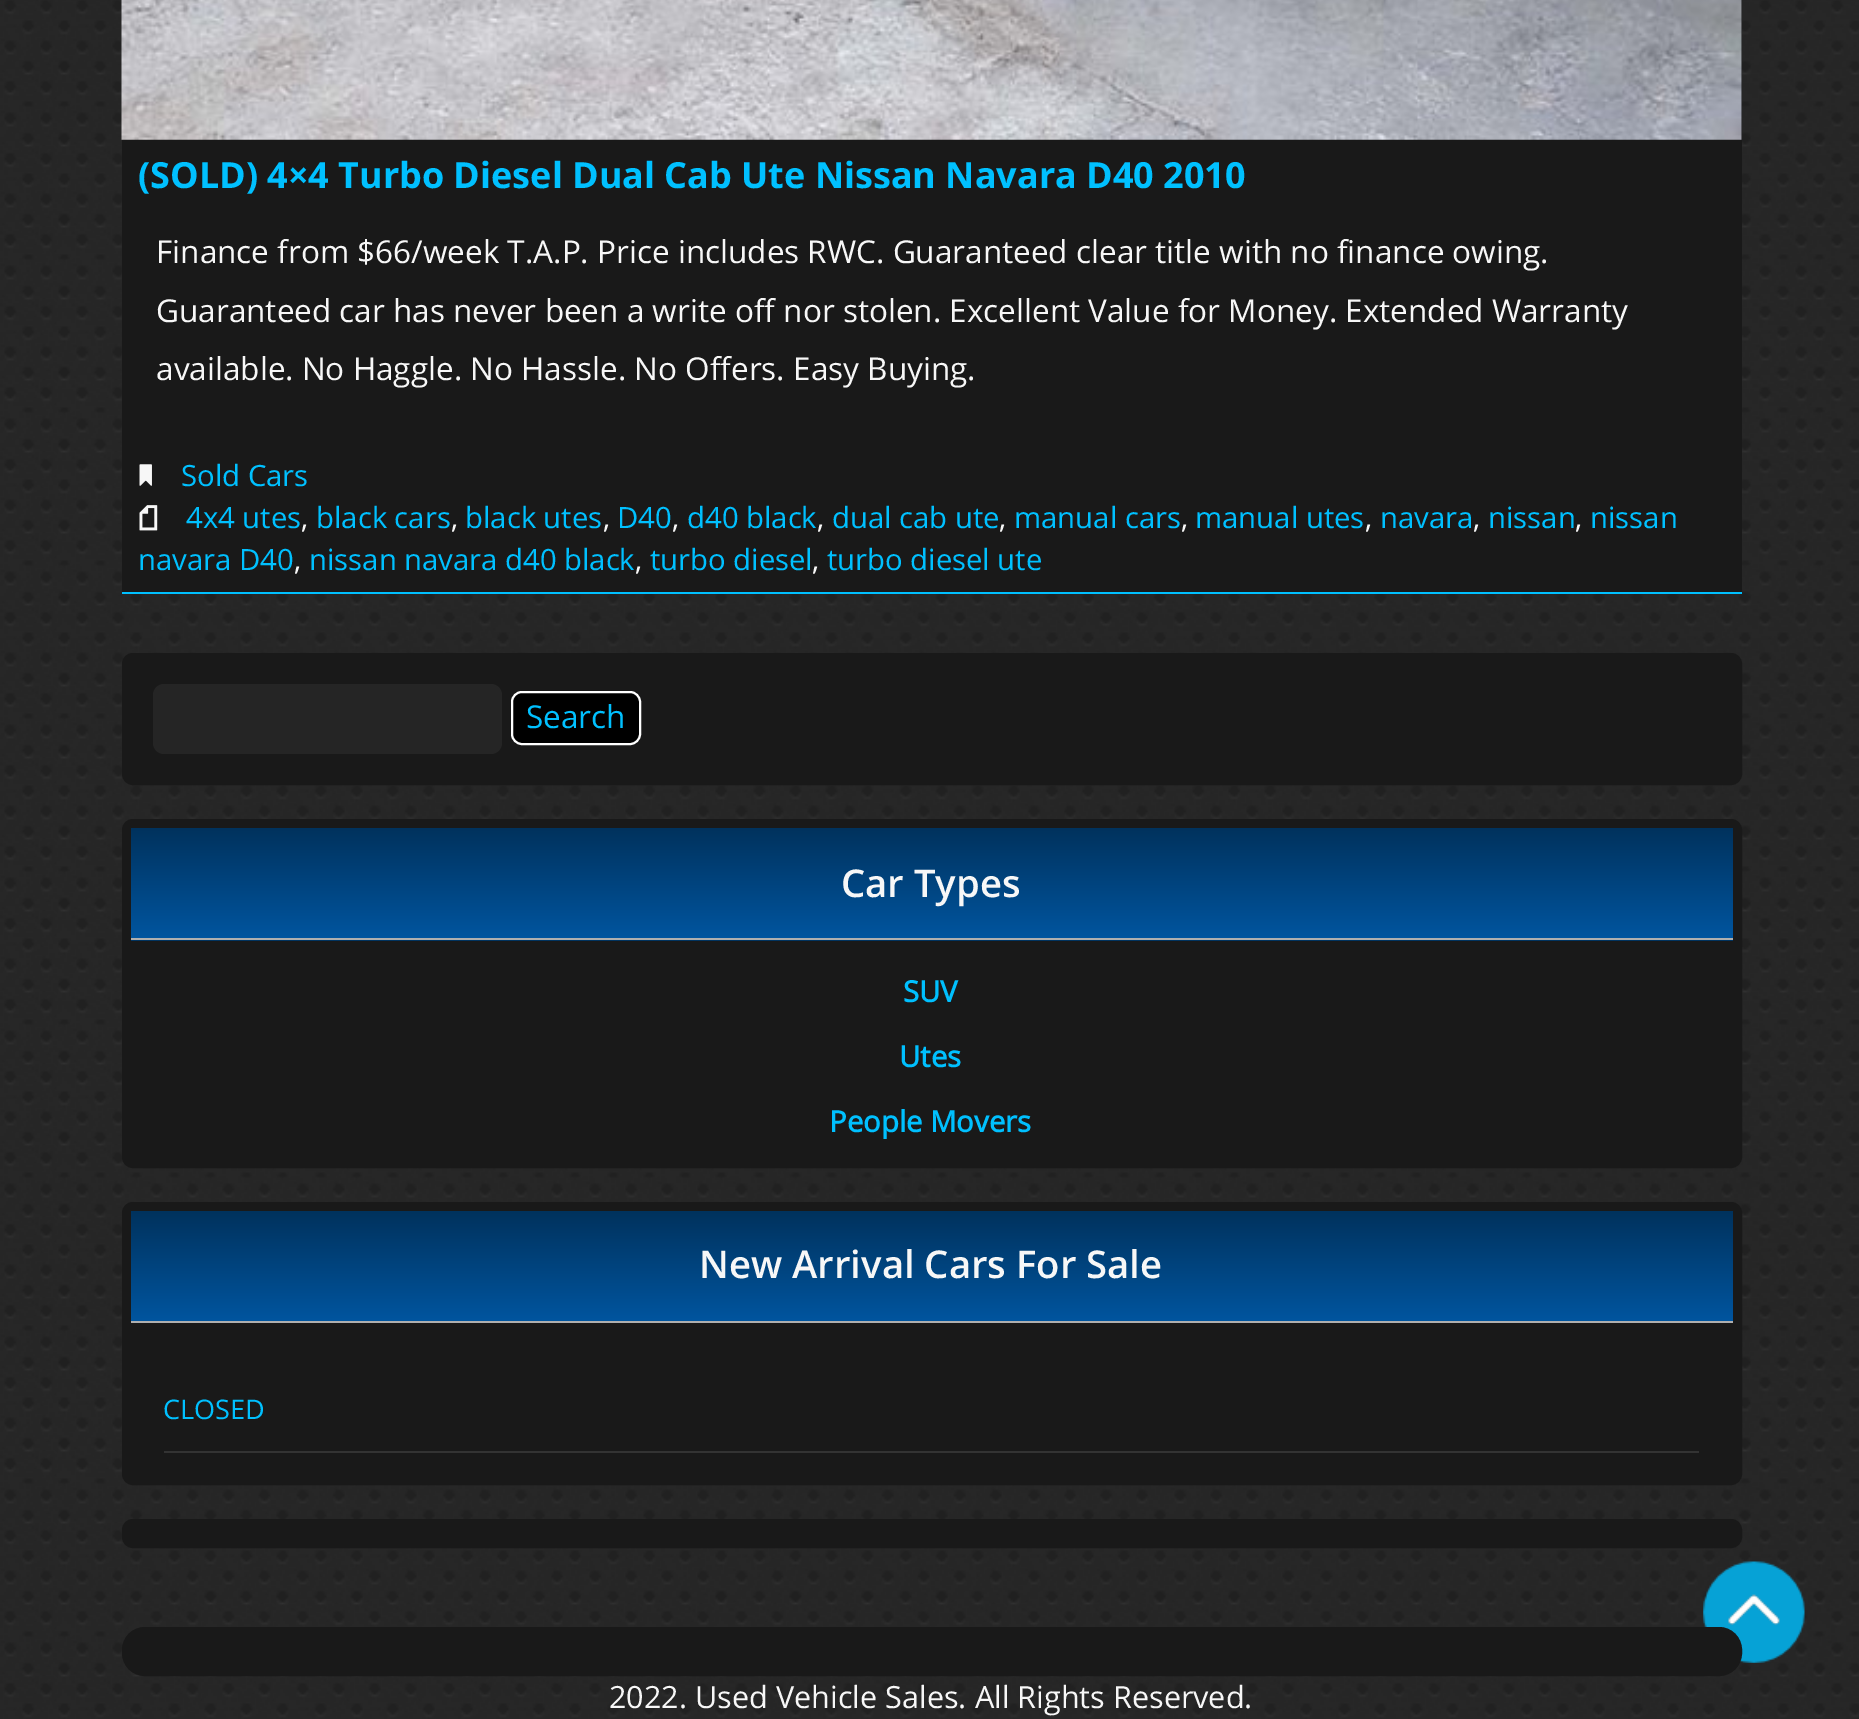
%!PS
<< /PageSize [1859 1719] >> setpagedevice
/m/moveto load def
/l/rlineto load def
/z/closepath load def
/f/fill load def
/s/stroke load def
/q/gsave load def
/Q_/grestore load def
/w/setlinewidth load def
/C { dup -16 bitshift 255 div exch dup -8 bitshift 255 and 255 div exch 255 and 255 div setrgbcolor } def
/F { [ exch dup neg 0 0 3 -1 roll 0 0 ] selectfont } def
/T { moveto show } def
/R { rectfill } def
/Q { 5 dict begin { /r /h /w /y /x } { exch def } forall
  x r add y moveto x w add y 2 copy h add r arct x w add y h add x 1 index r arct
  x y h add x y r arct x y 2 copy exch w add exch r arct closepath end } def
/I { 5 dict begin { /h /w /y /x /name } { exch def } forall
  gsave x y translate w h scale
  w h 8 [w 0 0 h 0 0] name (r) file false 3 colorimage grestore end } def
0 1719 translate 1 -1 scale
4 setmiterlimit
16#FFFFFF C
0 0 1859 1719 R
(1.rgb) 0 0 1859 1719 I
16#191919 C
122 0 1620 592 R
16#00C0FF C
122 592 1620 2 R
(2.rgb) 121 0 1621 140 I
/OpenSans-Bold 36 F
(\(SOLD\) 4×4 Turbo Diesel Dual Cab Ute Nissan Navara D40 2010) 138 188 T
/OpenSans-Regular 31.5 F
16#F7F7F7 C
(Finance from $66/week T.A.P. Price includes RWC. Guaranteed clear title with no finance owing.) 156 263 T
(Guaranteed car has never been a write off nor stolen. Excellent Value for Money. Extended Warranty) 156 322 T
(available. No Haggle. No Hassle. No Offers. Easy Buying.) 156 380 T
(3.rgb) 139 464 13 22 I
/OpenSans-Regular 29.25 F
16#00C0FF C
(Sold Cars) 181 486 T
(4.rgb) 139 505 19 26 I
(4x4 utes) 186 528 T
16#F7F7F7 C
(,) 301 528 T
16#00C0FF C
(black cars) 316 528 T
16#F7F7F7 C
(,) 451 528 T
16#00C0FF C
(black utes) 465 528 T
16#F7F7F7 C
(,) 603 528 T
16#00C0FF C
(D40) 617 528 T
16#F7F7F7 C
(,) 672 528 T
16#00C0FF C
(d40 black) 687 528 T
16#F7F7F7 C
(,) 817 528 T
16#00C0FF C
(dual cab ute) 832 528 T
16#F7F7F7 C
(,) 999 528 T
16#00C0FF C
(manual cars) 1014 528 T
16#F7F7F7 C
(,) 1181 528 T
16#00C0FF C
(manual utes) 1195 528 T
16#F7F7F7 C
(,) 1365 528 T
16#00C0FF C
(navara) 1380 528 T
16#F7F7F7 C
(,) 1473 528 T
16#00C0FF C
(nissan) 1488 528 T
16#F7F7F7 C
(,) 1575 528 T
16#00C0FF C
(nissan) 1590 528 T
(navara D40) 138 570 T
16#F7F7F7 C
(,) 294 570 T
16#00C0FF C
(nissan navara d40 black) 309 570 T
16#F7F7F7 C
(,) 635 570 T
16#00C0FF C
(turbo diesel) 650 570 T
16#F7F7F7 C
(,) 812 570 T
16#00C0FF C
(turbo diesel ute) 827 570 T
16#191919 C
126.5 657.5 1611 123 6.5 Q q f Q_
9 w
s
16#252525 C
153 684 349 70 11 Q f
16#000000 C
512 692 128 52 10 Q q f Q_
16#FFFFFF C
2 w
s
/OpenSans-Regular 31.5 F
16#00C0FF C
(Search) 526 728 T
16#191919 C
126.5 823.5 1611 340 6.5 Q q f Q_
9 w
s
q 131 828 m 1602 0 l 0 110 l -1602 0 l z clip newpath
<< /ShadingType 2 /ColorSpace /DeviceRGB /Coords [932 828 932 938] /Extend [true true] /Function << /FunctionType 2 /Domain [0 1] /C0 [0 .196 .365] /C1 [0 .333 .624] /N 1 >> >> shfill Q_
q 131 940 m 1602 0 l 0 1 l -1602 0 l z clip newpath
<< /ShadingType 2 /ColorSpace /DeviceRGB /Coords [932 938 932 1049] /Extend [true true] /Function << /FunctionType 2 /Domain [0 1] /C0 [0 .196 .365] /C1 [0 .333 .624] /N 1 >> >> shfill Q_
16#AFAFAF C
131 938 1602 2 R
/OpenSans-SemiBold 38.25 F
16#F7F7F7 C
(Car Types) 841 897 T
/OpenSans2-Bold 29.25 F
16#00C0FF C
(SUV) 903 1002 T
(Utes) 899 1067 T
(People Movers) 829 1132 T
16#191919 C
126.5 1206.5 1611 274 6.5 Q q f Q_
s
q 131 1211 m 1602 0 l 0 110 l -1602 0 l z clip newpath
<< /ShadingType 2 /ColorSpace /DeviceRGB /Coords [932 1211 932 1321] /Extend [true true] /Function << /FunctionType 2 /Domain [0 1] /C0 [0 .196 .365] /C1 [0 .333 .624] /N 1 >> >> shfill Q_
16#AFAFAF C
131 1321 1602 2 R
/OpenSans-SemiBold 38.25 F
16#F7F7F7 C
(New Arrival Cars For Sale) 699 1278 T
16#333333 C
164 1451 1535 2 R
/OpenSans-Regular 27 F
16#00C0FF C
(CLOSED) 163 1419 T
16#191919 C
126.5 1523.5 1611 20 6.5 Q q f Q_
s
(5.rgb) 1703 1561 102 102 I
126.5 1631.5 1611 40 18.5 Q q f Q_
s
/OpenSans-Regular 30.6 F
16#F7F7F7 C
(2022. Used Vehicle Sales. All Rights Reserved.) 609 1708 T
showpage
